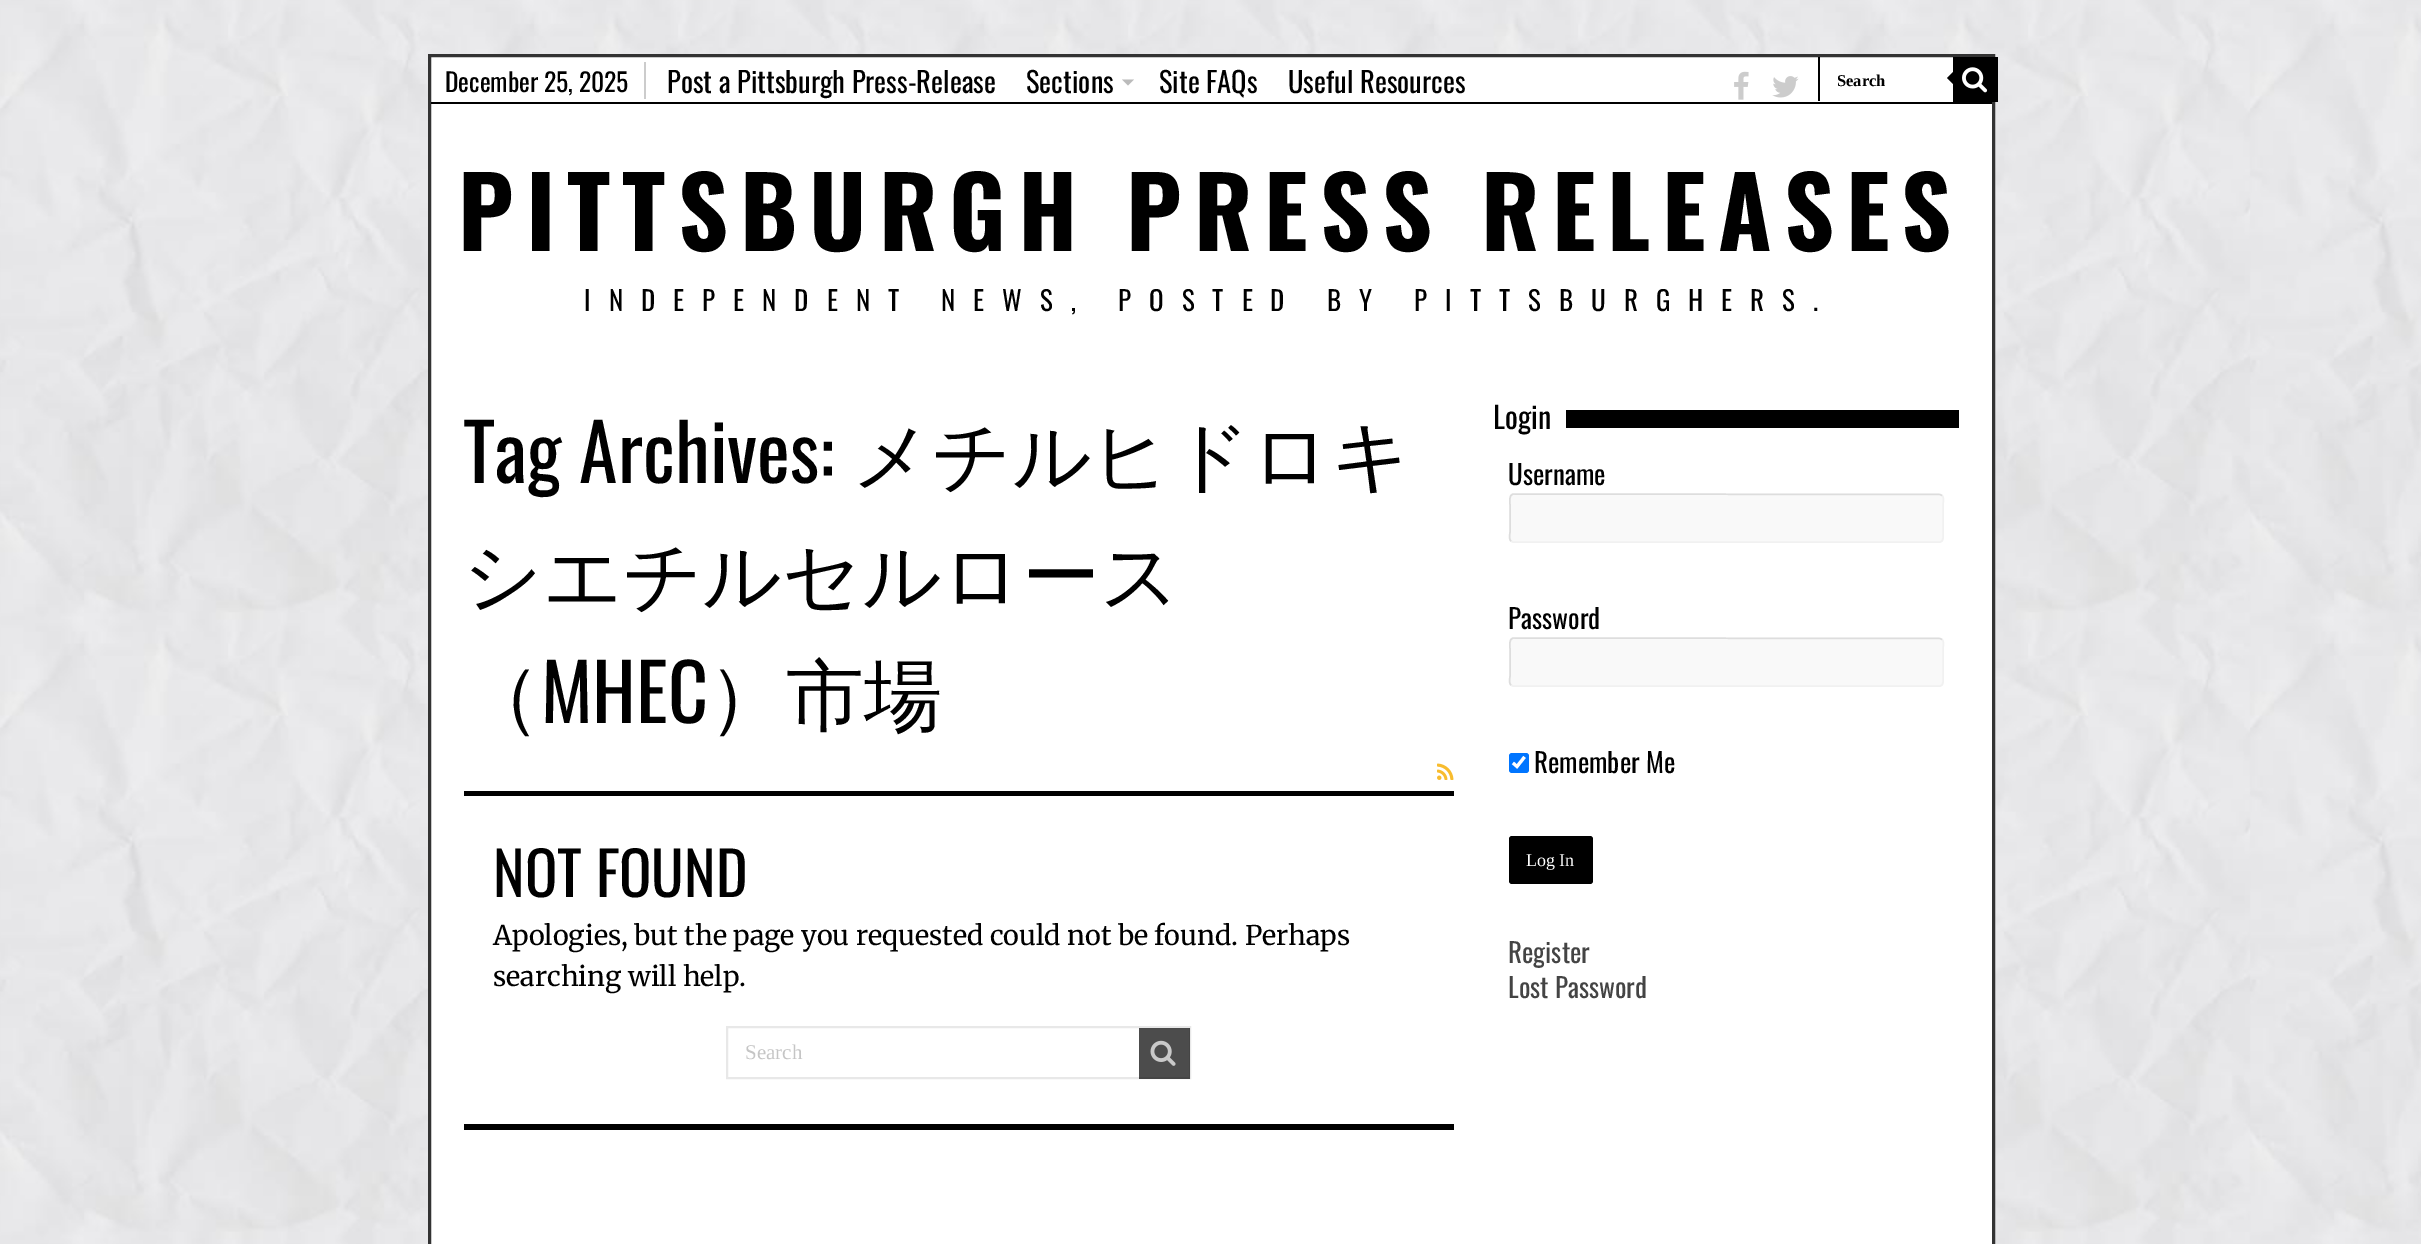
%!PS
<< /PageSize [2421 1244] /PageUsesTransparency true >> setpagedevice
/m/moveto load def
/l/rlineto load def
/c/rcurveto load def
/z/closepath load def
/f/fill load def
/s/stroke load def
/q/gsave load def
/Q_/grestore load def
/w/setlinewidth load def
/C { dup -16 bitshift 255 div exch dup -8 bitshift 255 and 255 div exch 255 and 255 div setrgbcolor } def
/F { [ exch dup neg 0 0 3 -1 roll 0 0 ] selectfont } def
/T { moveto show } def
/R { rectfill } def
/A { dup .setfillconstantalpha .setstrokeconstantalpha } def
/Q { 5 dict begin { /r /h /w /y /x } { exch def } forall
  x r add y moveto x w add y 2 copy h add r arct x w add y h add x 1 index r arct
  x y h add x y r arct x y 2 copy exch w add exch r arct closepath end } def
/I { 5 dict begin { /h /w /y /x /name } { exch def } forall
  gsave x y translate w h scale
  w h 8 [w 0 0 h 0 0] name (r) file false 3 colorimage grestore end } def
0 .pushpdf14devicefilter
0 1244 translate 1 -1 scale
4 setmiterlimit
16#FFFFFF C
0 0 2421 1244 R
(1.rgb) 0 0 2421 1244 I
429.5 55.5 m 1564 0 l 0 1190 l -1564 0 l z q f Q_
16#333333 C
3 w
s
16#000000 C
431 102 1561 2 R
16#CCCCCC C
644 62 2 37 R
/Oswald-Regular 25.5 F
16#000000 C
(December 25, 2025) 445 92 T
/Oswald-Regular 28.5 F
(Post a Pittsburgh Press-Release) 667 93 T
(Sections) 1026 93 T
16#BBBBBB C
1122 79.5 m 12 0 l -6 6 l z f
16#000000 C
(Site FAQs) 1159 93 T
(Useful Resources) 1288 93 T
(2.rgb) 1734 71 15 29 I
(3.rgb) 1772 76 27 22 I
1818 57 2 44 R
q
1838 71 97 18 rectclip
/LiberationSerif-Bold 16.5 F
(Search) 1837 86 T
Q_
1953 57 45 45 R
(4.rgb) 1962 67 26 26 I
1953 72 m 0 12 l -6 -6 l z f
/Oswald-Bold 97.5 F
458 251 m 12 0 (PITTSBURGH PRESS RELEASES) ashow
/Oswald-Regular 27 F
584 311 m 18 0 (INDEPENDENT NEWS, POSTED BY PITTSBURGHERS.) ashow
464 791 990 5 R
q
464 386 990 405 rectclip
/Oswald-Regular 78 F
(Tag Archives:) 463 483 T
Q_
/WenQuanYiZenHei-Medium 78 F
(メチルヒドロキ) 852 483 T
(シエチルセルロース) 463 603 T
(（) 463 723 T
/Oswald-Regular 78 F
(MHEC) 541 723 T
/WenQuanYiZenHei-Medium 78 F
(）市場) 708 723 T
(5.rgb) 1437 763 17 17 I
464 1124 990 6 R
/Oswald-Regular 60 F
(NOT FOUND) 493 897 T
/Merriweather-Regular 27 F
(Apologies, but the page you requested could not be found. Perhaps) 493 945 T
(searching will help.) 493 986 T
16#E8E8E8 C
2 w
727 1027 463 51 rectstroke
/LiberationSerif-Regular 21 F
16#C5C5C5 C
(Search) 745 1059 T
0.7 A
16#000000 C
1139 1028 51 51 R
1 A
(6.rgb) 1150 1040 26 26 I
/Oswald-Regular 30 F
(Login) 1493 429 T
1566 410 393 18 R
/Oswald-Regular 27 F
(Username) 1508 485 T
16#F9F9F9 C
1509 494 435 49 5 Q f
16#F1F1F1 C
1.5 w
1942 495.5 m 2.5 2 1 7.5 1 9.5 c 0 27 l 0 2.5 1.5 10 -3.5 10 c -426.5 0 l -2 -1 l s
16#DDDDDD C
1511 541 m -2.5 -2 -1 -7.5 -1 -9 c 0 -27 l 0 -3 -1.5 -10.5 3.5 -11 c 426.5 .5 l 2 1 l s
16#000000 C
(Password) 1508 629 T
16#F9F9F9 C
1509 638 435 49 5 Q f
16#F1F1F1 C
1942 639.5 m 2.5 2 1 7.5 1 9.5 c 0 27 l 0 2.5 1.5 10 -3.5 10 c -426.5 0 l -2 -1 l s
16#DDDDDD C
1511 685 m -2.5 -2 -1 -7.5 -1 -9 c 0 -27 l 0 -3 -1.5 -10.5 3.5 -11 c 426.5 .5 l 2 1 l s
16#0075FF C
1509 753 20 20 3 Q f
16#FFFFFF C
3.1 w
1513 763 m 4 3.5 l 7.5 -9.5 l s
16#000000 C
(Remember Me) 1534 773 T
1509 836 84 48 3 Q f
/LiberationSerif-Regular 18 F
16#FFFFFF C
(Log In) 1526 866 T
/Oswald-Regular 27 F
16#444444 C
(Register) 1508 963 T
(Lost Password) 1508 998 T
.poppdf14devicefilter showpage
